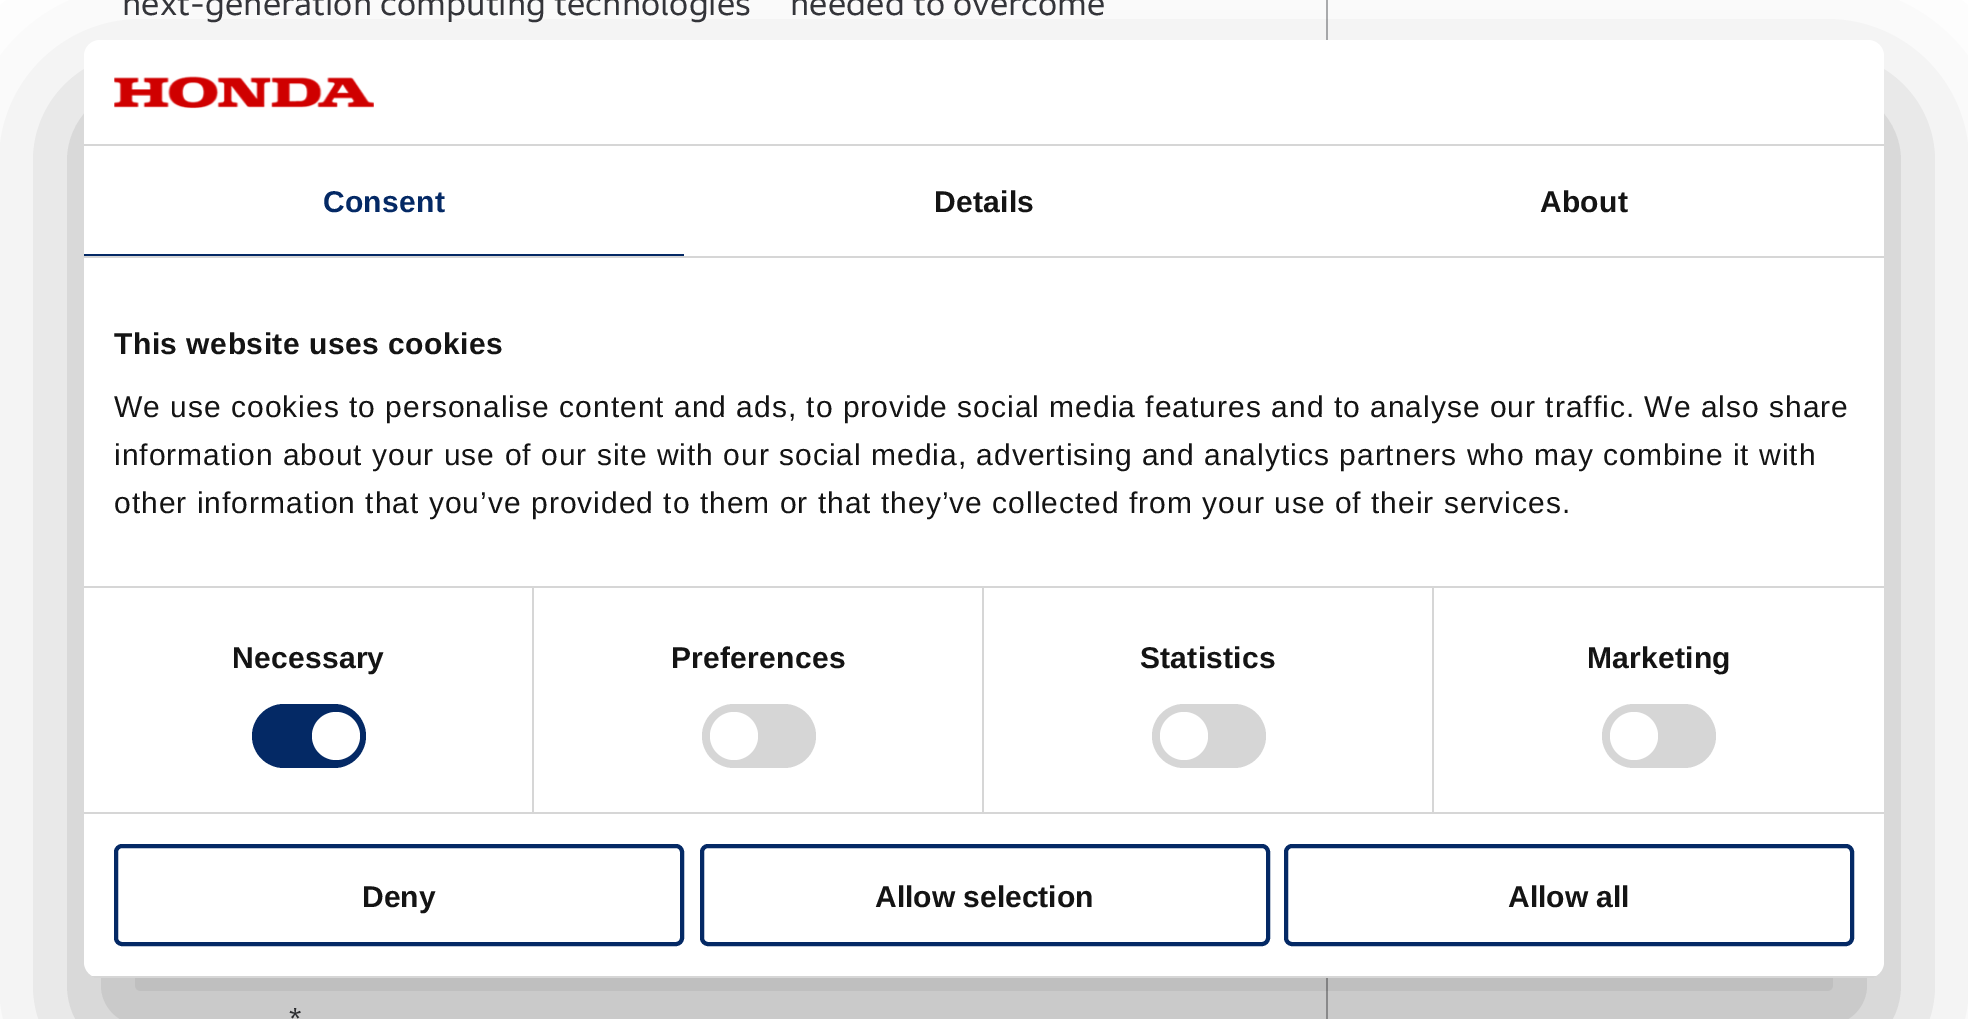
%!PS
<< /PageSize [1968 1019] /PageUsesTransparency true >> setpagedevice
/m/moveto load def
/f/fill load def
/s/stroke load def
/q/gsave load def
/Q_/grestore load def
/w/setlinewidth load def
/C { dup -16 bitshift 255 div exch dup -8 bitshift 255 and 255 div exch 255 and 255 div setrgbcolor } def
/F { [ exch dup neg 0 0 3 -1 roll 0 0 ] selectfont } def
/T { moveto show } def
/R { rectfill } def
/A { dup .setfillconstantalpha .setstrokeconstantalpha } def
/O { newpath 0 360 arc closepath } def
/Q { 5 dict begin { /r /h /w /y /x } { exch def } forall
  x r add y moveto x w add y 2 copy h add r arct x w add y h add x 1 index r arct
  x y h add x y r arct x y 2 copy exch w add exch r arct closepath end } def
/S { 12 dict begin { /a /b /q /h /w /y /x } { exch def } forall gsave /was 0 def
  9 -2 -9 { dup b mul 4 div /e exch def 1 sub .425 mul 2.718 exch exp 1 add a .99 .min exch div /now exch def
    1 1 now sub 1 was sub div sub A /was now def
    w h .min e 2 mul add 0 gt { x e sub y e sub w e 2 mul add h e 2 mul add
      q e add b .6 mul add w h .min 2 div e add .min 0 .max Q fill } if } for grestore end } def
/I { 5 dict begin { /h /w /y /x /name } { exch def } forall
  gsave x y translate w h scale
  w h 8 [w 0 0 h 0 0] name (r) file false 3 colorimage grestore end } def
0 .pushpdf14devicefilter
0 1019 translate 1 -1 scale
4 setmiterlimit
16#FFFFFF C
0 0 1968 1019 R
/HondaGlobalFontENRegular-Regular 32 F
16#35363B C
(next-generation computing technologies) 122 15 T
(needed to overcome) 790 15 T
/HondaGlobalFontENRegular-Regular 26 F
(*) 288 1028 T
16#ACADAF C
1326 0 2 1019 R
16#000000 C
84 104 1800 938 16 68 .3 S
16#FFFFFF C
84 40 1800 938 16 Q f
16#D6D6D6 C
84 144 1800 2 R
(1.rgb) 114 76 260 33 I
84 256 1800 2 R
16#042965 C
84 254 600 2 R
/LiberationSans-Bold 30 F
323 212 m .25 0 (Consent) ashow
16#141414 C
934 212 m .25 0 (Details) ashow
1540 212 m .25 0 (About) ashow
16#D6D6D6 C
84 586 1800 2 R
16#141414 C
114 354 m .5 0 (This website uses cookies) ashow
/LiberationSans-Regular 30 F
114 417 m 1 0 (We use cookies to personalise content and ads, to provide social media features and to analyse our traffic. We also share) ashow
114 465 m 1 0 (information about your use of our site with our social media, advertising and analytics partners who may combine it with) ashow
114 513 m 1 0 (other information that you’ve provided to them or that they’ve collected from your use of their services.) ashow
16#D6D6D6 C
84 812 1800 2 R
532 588 2 224 R
/LiberationSans-Bold 30 F
16#141414 C
232 668 m .25 0 (Necessary) ashow
16#042965 C
252 704 114 64 32 Q f
16#FFFFFF C
336 736 24 O f
16#D6D6D6 C
982 588 2 224 R
16#141414 C
671 668 m .25 0 (Preferences) ashow
16#D6D6D6 C
702 704 114 64 32 Q f
16#FFFFFF C
734 736 24 O f
16#D6D6D6 C
1432 588 2 224 R
16#141414 C
1140 668 m .25 0 (Statistics) ashow
16#D6D6D6 C
1152 704 114 64 32 Q f
16#FFFFFF C
1184 736 24 O f
16#141414 C
1587 668 m .25 0 (Marketing) ashow
16#D6D6D6 C
1602 704 114 64 32 Q f
16#FFFFFF C
1634 736 24 O f
q
84 40 1800 938 16 Q clip newpath
16#D6D6D6 C
84 976 1800 2 R
Q_
16#042965 C
4 w
116 846 566 98 6 Q s
16#141414 C
(Deny) 362 907 T
16#042965 C
702 846 566 98 6 Q s
16#141414 C
(Allow selection) 875 907 T
16#042965 C
1286 846 566 98 6 Q s
16#141414 C
(Allow all) 1508 907 T
.poppdf14devicefilter showpage
